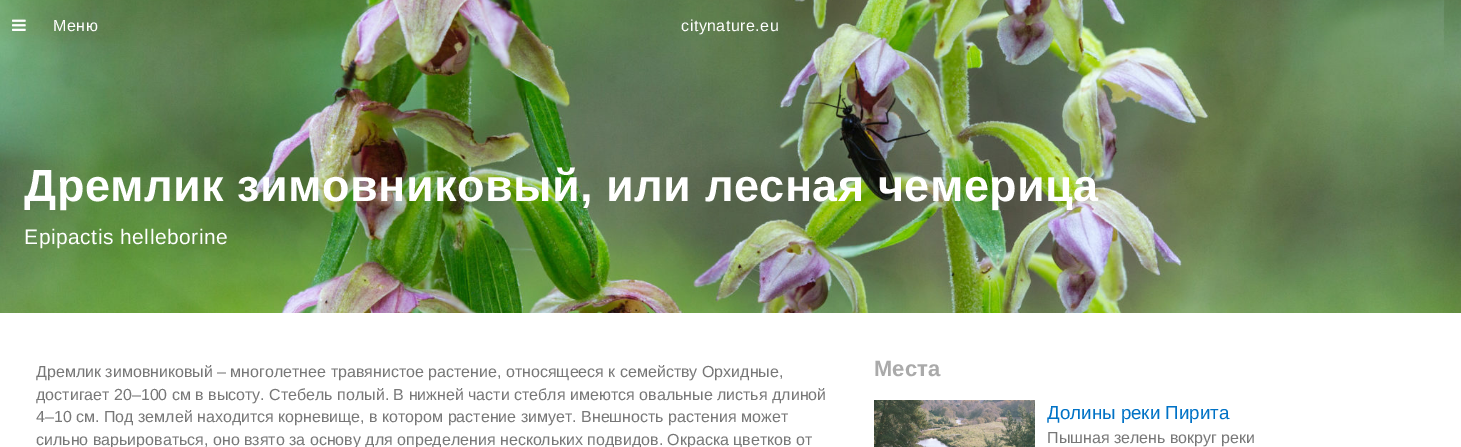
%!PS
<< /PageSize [1461 447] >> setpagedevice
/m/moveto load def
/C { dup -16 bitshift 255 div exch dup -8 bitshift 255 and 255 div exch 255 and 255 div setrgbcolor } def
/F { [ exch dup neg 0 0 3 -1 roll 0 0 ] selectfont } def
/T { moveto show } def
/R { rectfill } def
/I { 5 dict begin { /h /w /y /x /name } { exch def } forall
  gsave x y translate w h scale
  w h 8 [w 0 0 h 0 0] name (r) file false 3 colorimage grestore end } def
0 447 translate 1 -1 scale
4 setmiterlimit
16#FFFFFF C
0 0 1461 447 R
(1.rgb) 0 0 1461 313 I
(2.rgb) 12 19 14 12 I
/LiberationSans-Regular 16 F
53 31 m .5 0 (Меню) ashow
681 31 m .5 0 (citynature.eu) ashow
/LiberationSans-Bold 45 F
24 201 m .5 0 (Дремлик зимовниковый, или лесная чемерица) ashow
/LiberationSans-Regular 21 F
24 244 m .5 0 (Epipactis helleborine) ashow
/LiberationSans-Regular 16 F
16#777777 C
(Дремлик зимовниковый – многолетнее травянистое растение, относящееся к семейству Орхидные,) 36 377 T
(достигает 20–100 см в высоту. Стебель полый. В нижней части стебля имеются овальные листья длиной) 36 400 T
(4–10 см. Под землей находится корневище, в котором растение зимует. Внешность растения может) 36 422 T
(сильно варьироваться, оно взято за основу для определения нескольких подвидов. Окраска цветков от) 36 445 T
/LiberationSans-Bold 22 F
16#AAAAAA C
(Места) 874 376 T
(3.rgb) 874 400 161 47 I
/LiberationSans-Regular 18.75 F
16#0072C6 C
(Долины реки Пирита) 1047 419 T
/LiberationSans-Regular 16 F
16#777777 C
(Пышная зелень вокруг реки) 1047 443 T
showpage
